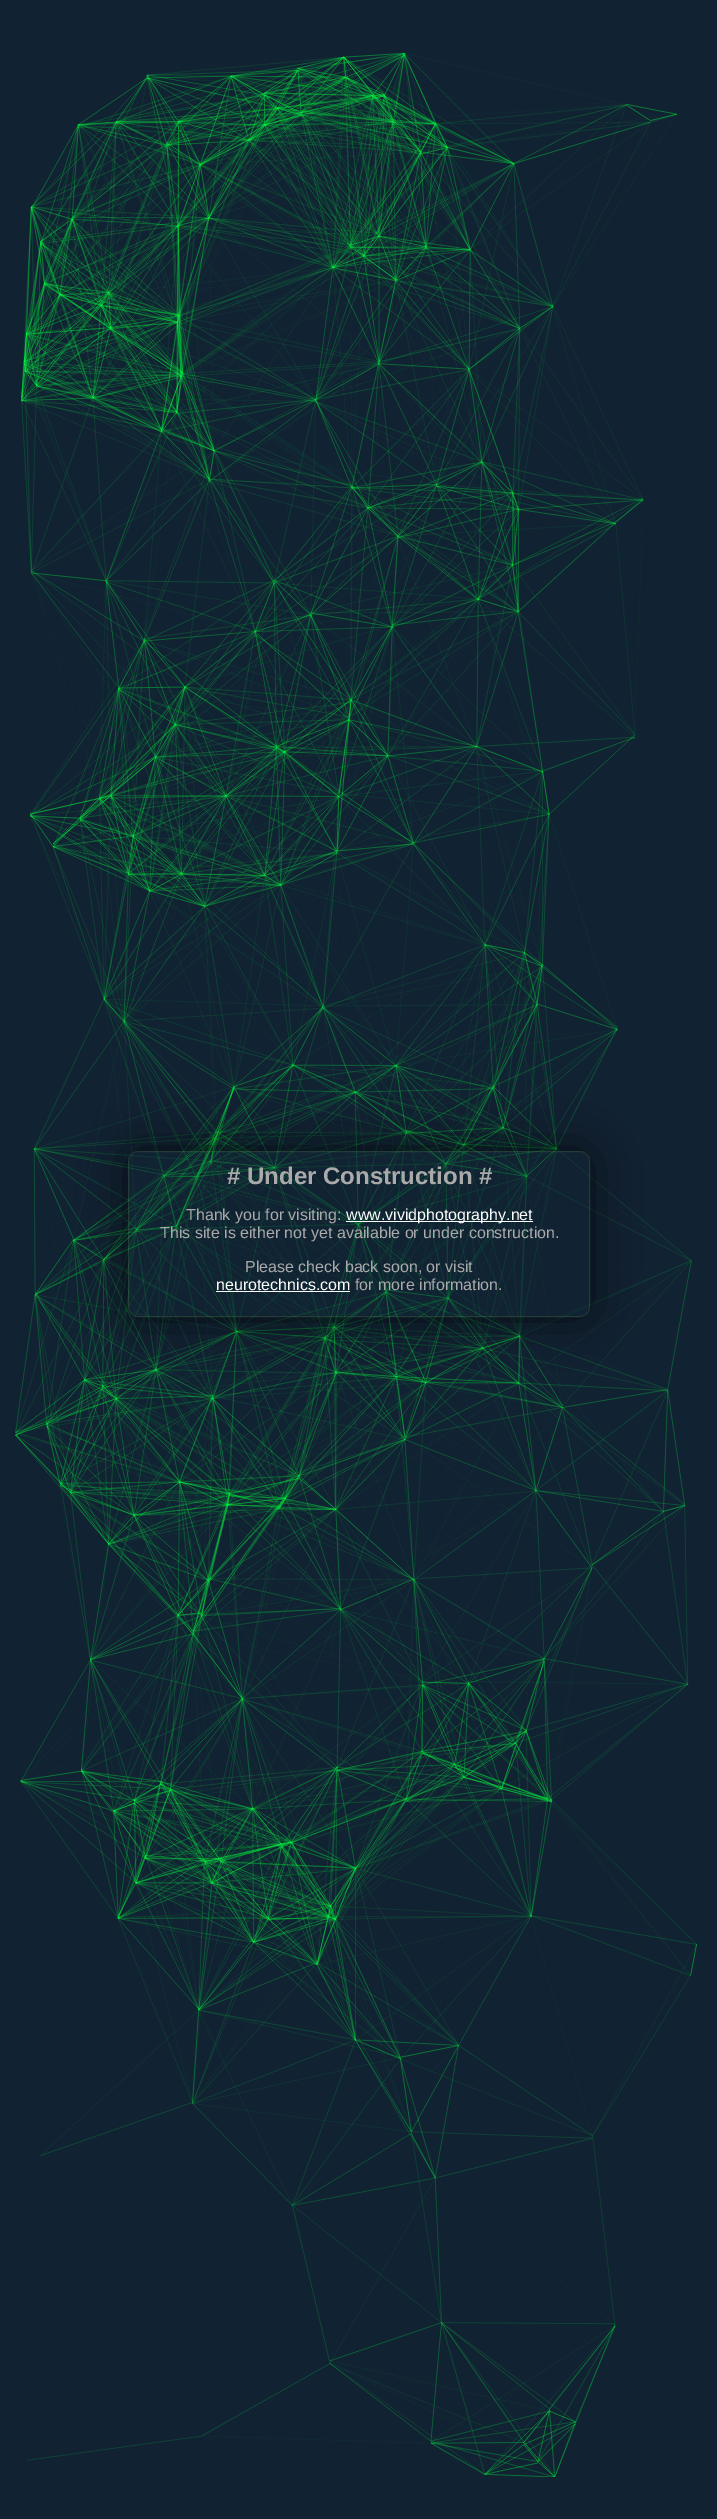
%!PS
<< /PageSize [717 2519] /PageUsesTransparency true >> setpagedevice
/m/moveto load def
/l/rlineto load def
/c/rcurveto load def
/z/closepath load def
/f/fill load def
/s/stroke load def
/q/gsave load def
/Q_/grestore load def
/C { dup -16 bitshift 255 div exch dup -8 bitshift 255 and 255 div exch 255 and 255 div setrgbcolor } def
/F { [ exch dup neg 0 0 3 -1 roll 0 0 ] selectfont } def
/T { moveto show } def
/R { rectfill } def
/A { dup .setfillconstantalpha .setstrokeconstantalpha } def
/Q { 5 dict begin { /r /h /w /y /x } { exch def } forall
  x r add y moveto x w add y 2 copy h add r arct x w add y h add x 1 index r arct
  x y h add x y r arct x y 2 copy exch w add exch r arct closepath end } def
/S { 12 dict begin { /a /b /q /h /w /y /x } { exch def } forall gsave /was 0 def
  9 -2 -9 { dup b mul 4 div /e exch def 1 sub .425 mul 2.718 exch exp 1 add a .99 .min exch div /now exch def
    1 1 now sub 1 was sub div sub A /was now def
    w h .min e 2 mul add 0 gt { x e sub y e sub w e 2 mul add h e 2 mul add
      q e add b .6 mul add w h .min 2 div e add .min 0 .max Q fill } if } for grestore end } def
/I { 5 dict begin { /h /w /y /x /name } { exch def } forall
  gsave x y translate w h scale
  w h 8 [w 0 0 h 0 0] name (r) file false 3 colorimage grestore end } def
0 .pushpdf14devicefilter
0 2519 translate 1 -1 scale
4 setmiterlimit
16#112233 C
0 0 717 2519 R
(1.rgb) 15 52 682 2425 I
q
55 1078 m 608 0 l 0 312 l -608 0 l z 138 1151 m 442 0 l 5.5 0 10 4.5 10 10 c 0 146 l 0 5.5 -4.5 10 -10 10 c -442 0 l -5.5 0 -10 -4.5 -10 -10 c 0 -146 l 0 -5.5 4.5 -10 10 -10 c z eoclip newpath
16#000000 C
128 1151 462 166 10 24 .7 S
Q_
0.15 A
128 1151 462 166 10 Q f
0.4 A
16#406040 C
128.5 1151.5 461 165 9.5 Q s
0.15 A
16#112233 C
129 1152 460 164 9 Q f
/LiberationSans-Bold 24 F
1 A
16#AAAAAA C
(# Under Construction #) 227 1184 T
/LiberationSans-Regular 16 F
(Thank you for visiting:) 186 1220 T
16#FFFFFF C
346 1221 187 1 R
(www.vividphotography.net) 346 1220 T
16#AAAAAA C
(This site is either not yet available or under construction.) 160 1238 T
(Please check back soon, or visit) 245 1272 T
16#FFFFFF C
(neurotechnics.com) 216 1290 T
216 1291 134 1 R
16#AAAAAA C
(for more information.) 355 1290 T
.poppdf14devicefilter showpage
